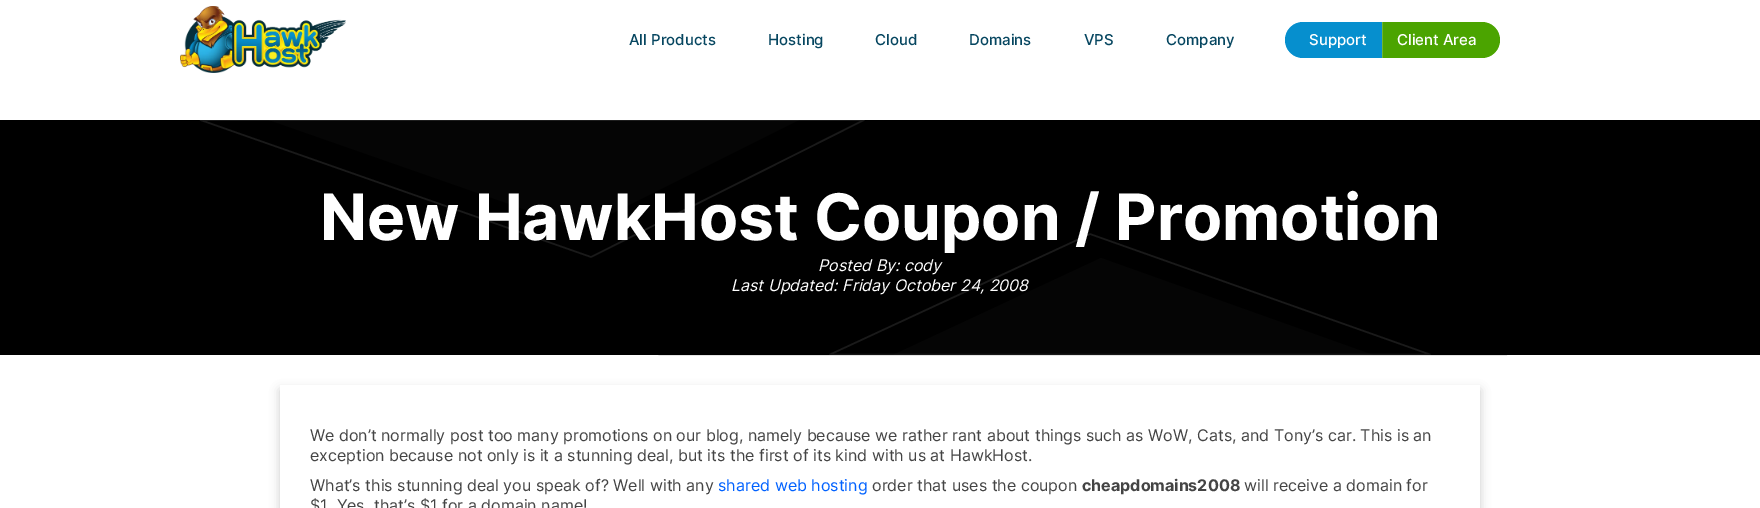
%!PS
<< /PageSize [1760 508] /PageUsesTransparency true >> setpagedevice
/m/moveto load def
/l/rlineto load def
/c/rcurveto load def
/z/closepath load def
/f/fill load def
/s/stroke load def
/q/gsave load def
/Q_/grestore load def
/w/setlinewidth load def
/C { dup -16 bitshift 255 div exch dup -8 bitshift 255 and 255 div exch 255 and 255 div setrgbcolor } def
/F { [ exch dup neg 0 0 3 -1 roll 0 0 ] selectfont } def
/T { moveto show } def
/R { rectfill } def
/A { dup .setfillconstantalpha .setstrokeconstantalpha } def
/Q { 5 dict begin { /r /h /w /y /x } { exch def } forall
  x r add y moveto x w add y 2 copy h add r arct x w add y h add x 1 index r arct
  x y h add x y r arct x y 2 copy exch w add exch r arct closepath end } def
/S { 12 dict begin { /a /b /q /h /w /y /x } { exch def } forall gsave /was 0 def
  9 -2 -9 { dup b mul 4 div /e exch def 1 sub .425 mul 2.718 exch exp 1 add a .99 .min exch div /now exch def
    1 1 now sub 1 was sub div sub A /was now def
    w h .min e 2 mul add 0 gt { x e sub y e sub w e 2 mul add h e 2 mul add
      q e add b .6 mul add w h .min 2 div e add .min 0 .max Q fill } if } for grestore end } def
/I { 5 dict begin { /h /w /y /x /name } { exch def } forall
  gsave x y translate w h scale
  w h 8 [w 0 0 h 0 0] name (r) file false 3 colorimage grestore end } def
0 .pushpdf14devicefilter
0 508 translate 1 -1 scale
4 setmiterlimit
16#FFFFFF C
0 0 1760 508 R
(1.rgb) 180 6 166 67 I
/Inter-Medium 15 F
16#064660 C
(All Products) 629 45 T
(Hosting) 768 45 T
(Cloud) 875 45 T
(Domains) 969 45 T
(VPS) 1084 45 T
(Company) 1166 45 T
16#068FCE C
1303 22 m 79 0 l 0 36 l -79 0 l -10 0 -18 -8 -18 -18 c 0 -10 8 -18 18 -18 c z f
16#FFFFFF C
(Support) 1309 45 T
16#4BA400 C
1382 22 m 100 0 l 10 0 18 8 18 18 c 0 10 -8 18 -18 18 c -100 0 l z f
16#6FB633 C
1382 22 1 36 R
16#FFFFFF C
(Client Area) 1397 45 T
16#000000 C
0 120 1760 235 R
16#050505 C
581 229 m 218 -109 l -530 0 l z f
q
0 120 1760 235 rectclip
0.1 A
16#FFFFFF C
1.5 w
1 setlinejoin
591 257 m 273 -137 l -663.5 0 l z s
Q_
1101 258 m -208 97 l 480 0 l z f
0.1 A
16#FFFFFF C
1.5 w
1 setlinejoin
1090 234 m -260 120.5 l 600 0 l z s
0.2 A
16#000000 C
1090 215.5 m -431 139 l 847.5 0 l z s
/Inter-Bold 64 F
1 A
16#FFFFFF C
(New HawkHost Coupon / Promotion) 320 240 T
/Inter-Italic 16 F
(Posted By: cody) 818 271 T
(Last Updated: Friday October 24, 2008) 731 291 T
q
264 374 m 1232 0 l 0 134 l -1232 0 l z 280 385 m 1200 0 l 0 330 l -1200 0 l z eoclip newpath
16#000000 C
280 390 1200 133 0 5 .2 S
Q_
/Inter-Regular 16 F
16#444444 C
(We don’t normally post too many promotions on our blog, namely because we rather rant about things such as WoW, Cats, and Tony’s car. This is an) 310 441 T
(exception because not only is it a stunning deal, but its the first of its kind with us at HawkHost.) 310 461 T
(What’s this stunning deal you speak of? Well with any) 310 491 T
16#0061FF C
(shared web hosting) 718 491 T
16#444444 C
(order that uses the coupon) 872 491 T
/Inter-Bold 16 F
(cheapdomains2008) 1082 491 T
/Inter-Regular 16 F
(will receive a domain for) 1244 491 T
($1. Yes, that’s $1 for a domain name!) 310 511 T
.poppdf14devicefilter showpage
